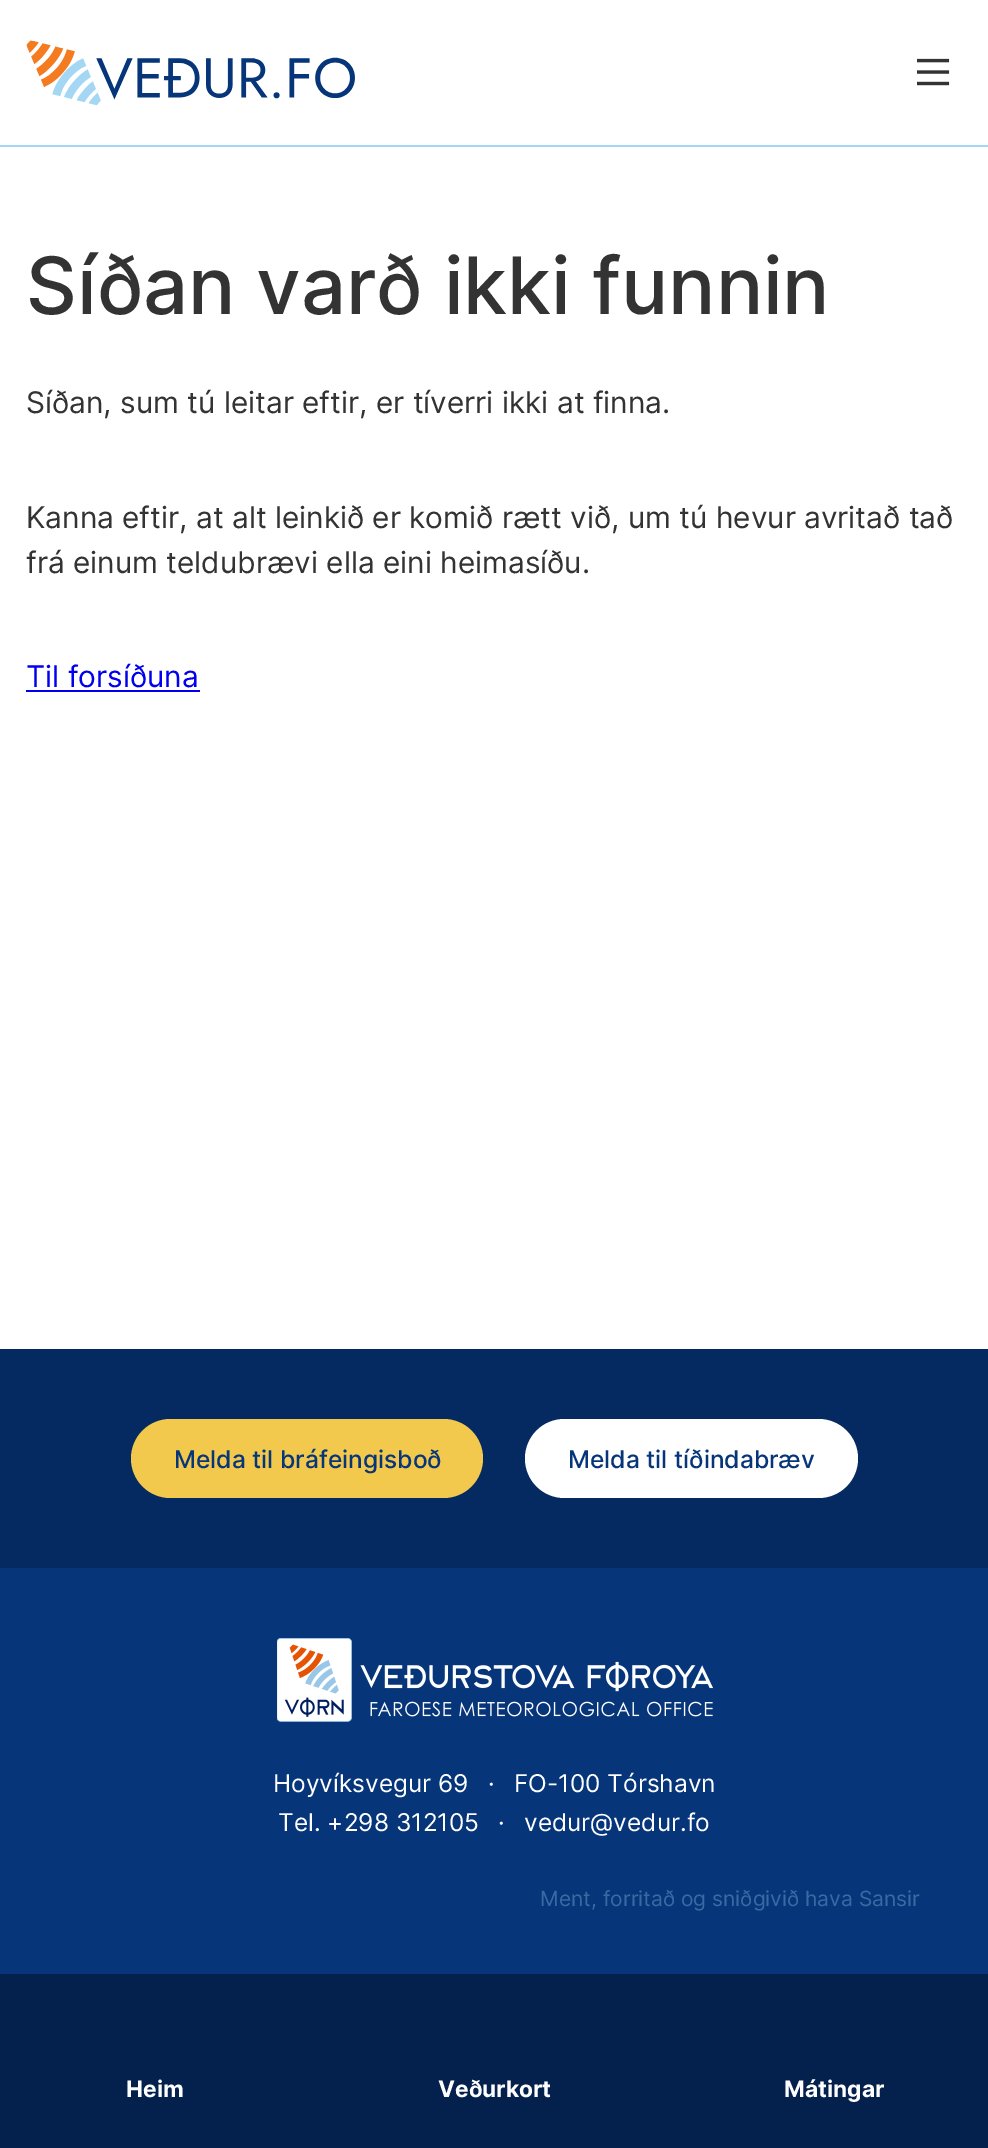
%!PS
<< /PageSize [988 2148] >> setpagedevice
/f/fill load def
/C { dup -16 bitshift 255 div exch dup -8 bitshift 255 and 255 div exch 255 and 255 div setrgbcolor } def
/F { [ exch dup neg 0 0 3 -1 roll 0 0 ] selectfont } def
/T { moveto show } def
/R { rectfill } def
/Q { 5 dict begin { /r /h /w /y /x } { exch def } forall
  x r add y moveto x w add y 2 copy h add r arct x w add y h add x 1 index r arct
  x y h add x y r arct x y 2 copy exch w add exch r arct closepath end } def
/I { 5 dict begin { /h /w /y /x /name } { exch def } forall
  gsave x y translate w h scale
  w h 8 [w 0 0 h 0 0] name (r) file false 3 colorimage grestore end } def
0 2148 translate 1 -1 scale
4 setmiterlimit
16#FFFFFF C
0 0 988 2148 R
/Inter-Medium 79.1 F
16#333333 C
(Síðan varð ikki funnin) 26 314 T
/Inter-Regular 29.75 F
(Síðan, sum tú leitar eftir, er tíverri ikki at finna.) 26 413 T
(Kanna eftir, at alt leinkið er komið rætt við, um tú hevur avritað tað) 26 528 T
(frá einum teldubrævi ella eini heimasíðu.) 26 573 T
16#0000EE C
(Til forsíðuna) 26 687 T
26 690 174 2 R
16#06357A C
0 1568 988 406 R
16#052A62 C
0 1349 988 219 R
16#F2C94C C
131 1419 352 79 39.5 Q f
/Inter-Medium 24.5 F
16#06357A C
(Melda til bráfeingisboð) 174 1468 T
16#FFFFFF C
525 1419 333 79 39.5 Q f
16#06357A C
(Melda til tíðindabræv) 568 1468 T
(1.rgb) 277 1638 436 84 I
/Inter-Regular 24.5 F
16#FFFFFF C
(Hoyvíksvegur 69) 273 1792 T
(·) 488 1792 T
(FO-100 Tórshavn) 514 1792 T
(Tel. +298 312105) 278 1831 T
(·) 498 1831 T
(vedur@vedur.fo) 524 1831 T
/Inter-Regular 21 F
16#3A6AA2 C
(Ment, forritað og sniðgivið hava Sansir) 540 1906 T
16#A4D7F4 C
0 145 988 2 R
(2.rgb) 26 40 329 66 I
(3.rgb) 917 58 33 28 I
16#04214E C
0 1974 988 174 R
/Inter-Bold 22.75 F
16#FFFFFF C
(Heim) 126 2097 T
(Veðurkort) 438 2097 T
(Mátingar) 784 2097 T
showpage
